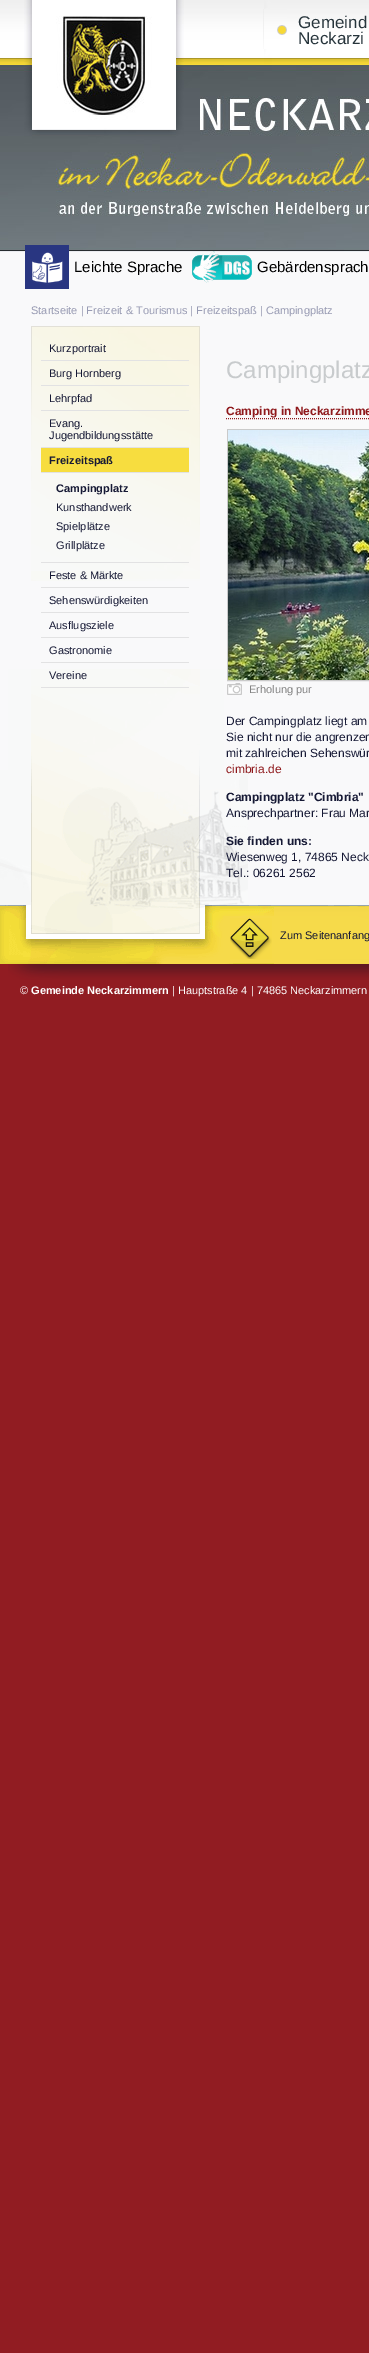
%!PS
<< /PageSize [369 2353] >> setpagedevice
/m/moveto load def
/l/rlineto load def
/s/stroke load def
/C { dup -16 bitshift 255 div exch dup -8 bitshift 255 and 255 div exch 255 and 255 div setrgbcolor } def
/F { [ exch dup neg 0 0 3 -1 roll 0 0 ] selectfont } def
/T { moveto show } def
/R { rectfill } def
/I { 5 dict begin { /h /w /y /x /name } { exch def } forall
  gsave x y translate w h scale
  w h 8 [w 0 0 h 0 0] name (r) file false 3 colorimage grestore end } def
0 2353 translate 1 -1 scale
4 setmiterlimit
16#911C22 C
0 0 369 2353 R
(1.rgb) 0 0 369 252 I
(2.rgb) 263 9 24 40 I
/LiberationSans-Regular 17 F
16#27353C C
(Gemeind) 298 28 T
(Neckarzi) 298 44 T
16#F9F9FA C
0 252 369 653 R
(3.rgb) 0 669 369 295 I
(4.rgb) 25 245 44 44 I
/LiberationSans-Regular 15 F
16#000000 C
(Leichte Sprache) 74 272 T
(5.rgb) 192 251 60 32 I
(Gebärdensprach) 257 272 T
(6.rgb) 230 918 42 41 I
/LiberationSans-Regular 11 F
16#161935 C
(Zum Seitenanfang) 280 939 T
16#989BB3 C
(Startseite | Freizeit & Tourismus | Freizeitspaß | Campingplatz) 31 314 T
(7.rgb) 31 326 169 255 I
16#E2E2E3 C
41 360 148 1 R
16#161935 C
(Kurzportrait) 49 352 T
16#E2E2E3 C
41 385 148 1 R
16#161935 C
(Burg Hornberg) 49 377 T
16#E2E2E3 C
41 410 148 1 R
16#161935 C
(Lehrpfad) 49 402 T
16#E2E2E3 C
41 447 148 1 R
16#161935 C
(Evang.) 49 427 T
(Jugendbildungsstätte) 49 439 T
16#F7DD3F C
41 448 148 24 R
16#E2E2E3 C
41 472 148 1 R
/LiberationSans-Bold 11 F
16#161935 C
(Freizeitspaß) 49 464 T
16#E2E2E3 C
41 562 148 1 R
16#161935 C
(Campingplatz) 56 492 T
/LiberationSans-Regular 11 F
(Kunsthandwerk) 56 511 T
(Spielplätze) 56 530 T
(Grillplätze) 56 549 T
16#E2E2E3 C
41 587 148 1 R
16#161935 C
(Feste & Märkte) 49 579 T
16#E2E2E3 C
41 612 148 1 R
16#161935 C
(Sehenswürdigkeiten) 49 604 T
16#E2E2E3 C
41 637 148 1 R
16#161935 C
(Ausflugsziele) 49 629 T
16#E2E2E3 C
41 662 148 1 R
16#161935 C
(Gastronomie) 49 654 T
16#E2E2E3 C
41 687 148 1 R
16#161935 C
(Vereine) 49 679 T
/LiberationSans-Regular 24 F
16#C8CBCD C
(Campingplatz) 226 378 T
16#8F191C C
[1 1] 0 setdash
226 418.5 m 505 0 l s
/LiberationSans-Bold 12 F
(Camping in Neckarzimme) 226 415 T
16#CACACA C
[] 0 setdash
227.5 429.5 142 251 rectstroke
(8.rgb) 228 430 141 250 I
(9.rgb) 227 683 15 12 I
/LiberationSans-Regular 11 F
16#828282 C
(Erholung pur) 249 693 T
/LiberationSans-Regular 12 F
16#161935 C
(Der Campingplatz liegt am) 226 725 T
(Sie nicht nur die angrenzen) 226 741 T
(mit zahlreichen Sehenswür) 226 757 T
16#8F191C C
(cimbria.de) 226 773 T
/LiberationSans-Bold 12 F
16#161935 C
(Campingplatz "Cimbria") 226 801 T
/LiberationSans-Regular 12 F
(Ansprechpartner: Frau Mar) 226 817 T
/LiberationSans-Bold 12 F
(Sie finden uns:) 226 845 T
/LiberationSans-Regular 12 F
(Wiesenweg 1, 74865 Neck) 226 861 T
(Tel.: 06261 2562) 226 877 T
(10.rgb) 8 964 361 16 I
/LiberationSans-Regular 11 F
16#FFFFFF C
(©) 20 994 T
/LiberationSans-Bold 11 F
(Gemeinde Neckarzimmern) 31 994 T
/LiberationSans-Regular 11 F
(| Hauptstraße 4 | 74865 Neckarzimmern) 172 994 T
showpage
